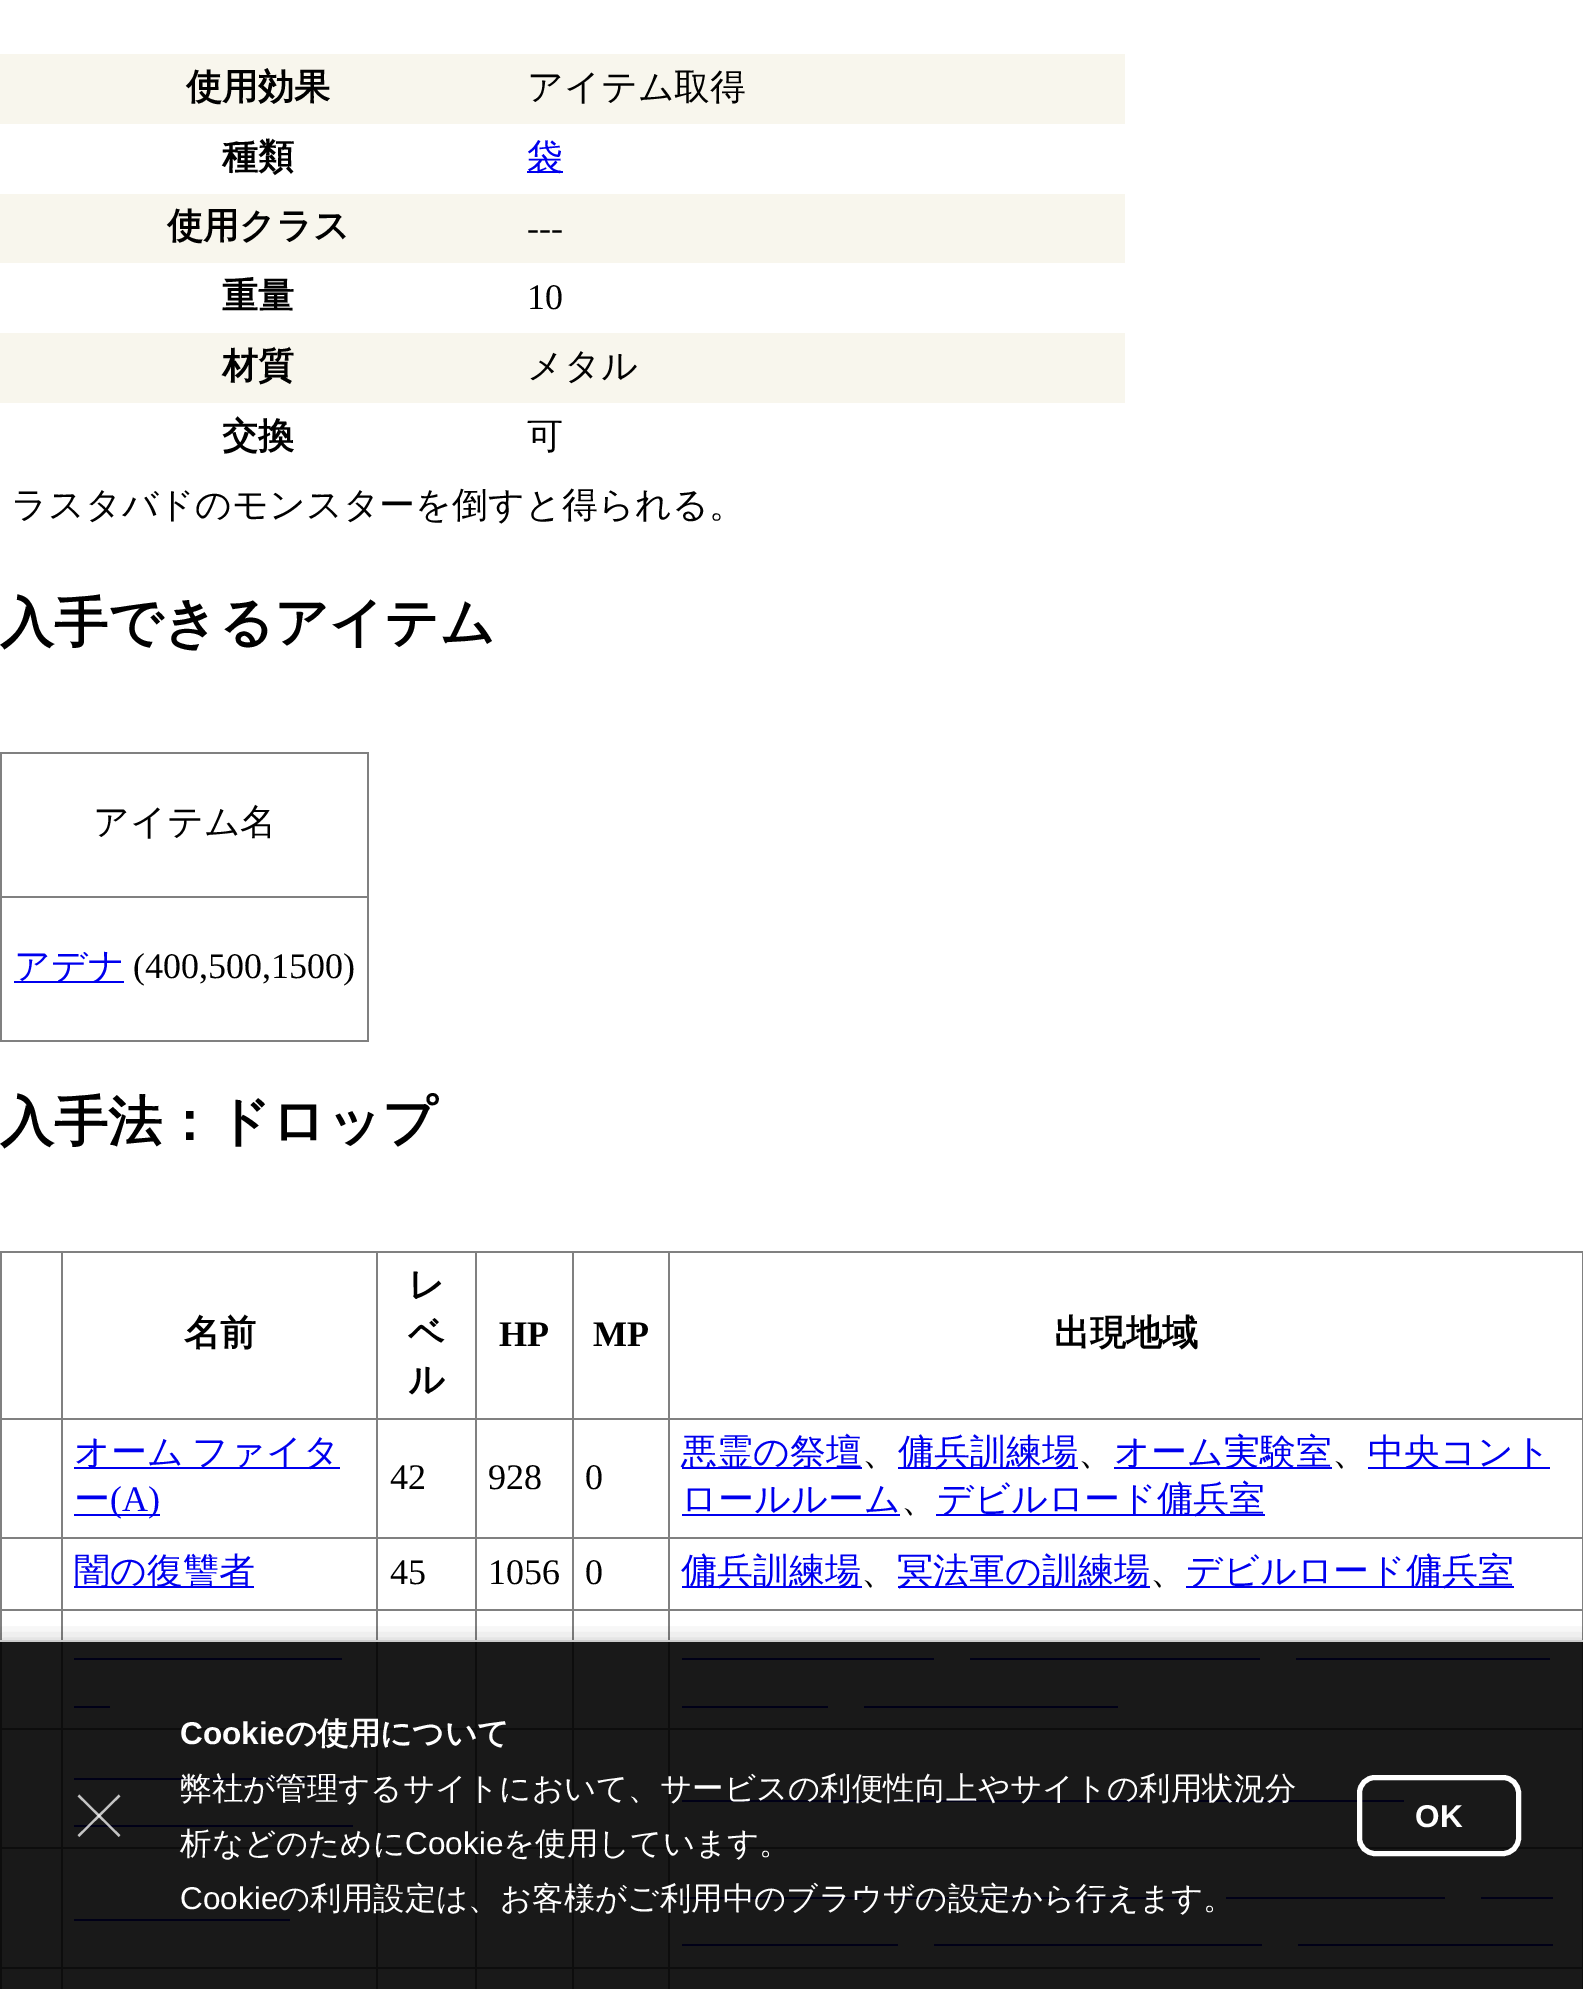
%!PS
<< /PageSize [1583 1989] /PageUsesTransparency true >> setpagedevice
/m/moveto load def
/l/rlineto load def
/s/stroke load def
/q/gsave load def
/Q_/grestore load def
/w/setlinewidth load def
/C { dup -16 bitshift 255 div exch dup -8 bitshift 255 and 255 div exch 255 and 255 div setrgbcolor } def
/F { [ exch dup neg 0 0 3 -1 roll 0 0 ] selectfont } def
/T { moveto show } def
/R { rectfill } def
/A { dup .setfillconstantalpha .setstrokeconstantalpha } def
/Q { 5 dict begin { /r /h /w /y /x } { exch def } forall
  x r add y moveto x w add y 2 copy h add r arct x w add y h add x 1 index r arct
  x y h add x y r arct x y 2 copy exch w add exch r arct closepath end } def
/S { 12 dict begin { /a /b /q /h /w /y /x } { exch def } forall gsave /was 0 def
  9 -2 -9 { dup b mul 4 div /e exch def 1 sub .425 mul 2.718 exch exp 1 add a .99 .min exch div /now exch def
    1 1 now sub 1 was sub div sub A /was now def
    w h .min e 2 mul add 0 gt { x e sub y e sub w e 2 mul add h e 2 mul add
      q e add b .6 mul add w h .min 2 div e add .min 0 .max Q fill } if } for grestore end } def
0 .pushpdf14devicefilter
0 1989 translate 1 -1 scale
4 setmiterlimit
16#FFFFFF C
0 0 1583 1989 R
16#F8F6ED C
0 54 1125 70 R
/WenQuanYiZenHei-Bold 36 F
16#000000 C
(使用効果) 186 99 T
/WenQuanYiZenHei-Medium 36 F
(アイテム取得) 527 99 T
/WenQuanYiZenHei-Bold 36 F
(種類) 222 169 T
16#0000EE C
527 171 36 2 R
/WenQuanYiZenHei-Medium 36 F
(袋) 527 169 T
16#F8F6ED C
0 194 1125 69 R
/WenQuanYiZenHei-Bold 36 F
16#000000 C
(使用クラス) 167 238 T
/LiberationSerif-Regular 36 F
(---) 527 240 T
/WenQuanYiZenHei-Bold 36 F
(重量) 222 308 T
/LiberationSerif-Regular 36 F
(10) 527 309 T
16#F8F6ED C
0 333 1125 70 R
/WenQuanYiZenHei-Bold 36 F
16#000000 C
(材質) 222 378 T
/WenQuanYiZenHei-Medium 36 F
(メタル) 527 378 T
/WenQuanYiZenHei-Bold 36 F
(交換) 222 448 T
/WenQuanYiZenHei-Medium 36 F
(可) 527 448 T
(ラスタバドのモンスターを倒すと得られる。) 11 517 T
/WenQuanYiZenHei-Bold 54 F
(入手できるアイテム) 0 641 T
16#808080 C
0 752 369 2 R
367 752 2 290 R
0 1040 369 2 R
0 752 2 290 R
/WenQuanYiZenHei-Medium 36 F
16#000000 C
(アイテム名) 93 834 T
16#808080 C
0 896 369 2 R
16#0000EE C
14 981 110 2 R
(アデナ) 14 978 T
/LiberationSerif-Regular 36 F
16#000000 C
(\(400,500,1500\)) 133 978 T
/WenQuanYiZenHei-Bold 54 F
(入手法：ドロップ) 0 1140 T
16#808080 C
0 1251 1583 2 R
1582 1251 1 738 R
0 1251 2 738 R
668 1418 915 2 R
668 1537 915 2 R
668 1609 915 2 R
668 1728 915 2 R
668 1847 915 2 R
668 1967 915 2 R
668 1967 2 22 R
572 1967 99 2 R
668 1847 2 122 R
572 1847 99 2 R
668 1728 2 122 R
572 1728 99 2 R
668 1609 2 121 R
572 1609 99 2 R
668 1537 2 74 R
572 1537 99 2 R
668 1418 2 121 R
572 1418 99 2 R
572 1967 2 22 R
475 1967 99 2 R
572 1847 2 122 R
475 1847 99 2 R
572 1728 2 122 R
475 1728 99 2 R
572 1609 2 121 R
475 1609 99 2 R
572 1537 2 74 R
475 1537 99 2 R
572 1418 2 121 R
475 1418 99 2 R
475 1967 2 22 R
376 1967 101 2 R
475 1847 2 122 R
376 1847 101 2 R
475 1728 2 122 R
376 1728 101 2 R
475 1609 2 121 R
376 1609 101 2 R
475 1537 2 74 R
376 1537 101 2 R
475 1418 2 121 R
376 1418 101 2 R
376 1967 2 22 R
61 1967 317 2 R
376 1847 2 122 R
61 1847 317 2 R
376 1728 2 122 R
61 1728 317 2 R
376 1609 2 121 R
61 1609 317 2 R
376 1537 2 74 R
61 1537 317 2 R
376 1418 2 121 R
61 1418 317 2 R
61 1967 2 22 R
0 1967 63 2 R
61 1847 2 122 R
0 1847 63 2 R
61 1728 2 122 R
0 1728 63 2 R
61 1609 2 121 R
0 1609 63 2 R
61 1537 2 74 R
0 1537 63 2 R
61 1418 2 121 R
0 1418 63 2 R
61 1251 2 169 R
/WenQuanYiZenHei-Bold 36 F
16#000000 C
(名前) 184 1345 T
16#808080 C
376 1251 2 169 R
16#000000 C
(レ) 408 1297 T
(ベ) 408 1345 T
(ル) 408 1392 T
16#808080 C
475 1251 2 169 R
/LiberationSerif-Bold 36 F
16#000000 C
(HP) 499 1346 T
16#808080 C
572 1251 2 169 R
16#000000 C
(MP) 593 1346 T
16#808080 C
668 1251 2 169 R
/WenQuanYiZenHei-Bold 36 F
16#000000 C
(出現地域) 1054 1345 T
16#0000EE C
74 1467 266 2 R
/WenQuanYiZenHei-Medium 36 F
74 1464 m -2 0 32 (オーム ファイタ) widthshow
(ー) 74 1511 T
74 1514 86 2 R
/LiberationSerif-Regular 36 F
(\(A\)) 110 1511 T
16#000000 C
(42) 390 1489 T
(928) 488 1489 T
(0) 585 1489 T
16#0000EE C
682 1467 180 2 R
/WenQuanYiZenHei-Medium 36 F
(悪霊の祭壇) 681 1464 T
16#000000 C
(、) 862 1464 T
16#0000EE C
898 1467 180 2 R
(傭兵訓練場) 898 1464 T
16#000000 C
(、) 1078 1464 T
16#0000EE C
1114 1467 218 2 R
(オーム実験室) 1114 1464 T
16#000000 C
(、) 1332 1464 T
16#0000EE C
1368 1467 182 2 R
(中央コント) 1368 1464 T
(ロールルーム) 681 1511 T
682 1514 218 2 R
16#000000 C
(、) 901 1511 T
16#0000EE C
936 1514 329 2 R
(デビルロード傭兵室) 937 1511 T
74 1586 180 2 R
(闇の復讐者) 74 1583 T
/LiberationSerif-Regular 36 F
16#000000 C
(45) 390 1584 T
(1056) 488 1584 T
(0) 585 1584 T
16#0000EE C
682 1586 180 2 R
/WenQuanYiZenHei-Medium 36 F
(傭兵訓練場) 681 1583 T
16#000000 C
(、) 861 1583 T
16#0000EE C
898 1586 252 2 R
(冥法軍の訓練場) 897 1583 T
16#000000 C
(、) 1150 1583 T
16#0000EE C
1186 1586 328 2 R
(デビルロード傭兵室) 1186 1583 T
74 1658 268 2 R
74 1706 36 2 R
682 1658 252 2 R
970 1658 290 2 R
1296 1658 254 2 R
682 1706 146 2 R
864 1706 254 2 R
74 1778 266 2 R
74 1825 279 2 R
682 1800 180 2 R
898 1800 252 2 R
1186 1800 218 2 R
74 1919 216 2 R
682 1897 180 2 R
898 1897 292 2 R
1226 1897 219 2 R
1481 1897 72 2 R
682 1944 216 2 R
934 1944 328 2 R
1298 1944 255 2 R
q
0 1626 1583 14 rectclip
16#000000 C
0 1640 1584 349 0 11 .2 S
Q_
0.9 A
16#000000 C
0 1642 1583 347 R
1 A
16#CCCCCC C
0 1640 1583 2 R
0.75 A
16#FFFFFF C
2.2 w
78.5 1795.5 m 41 40.5 l s
78.5 1836 m 41 -40.5 l s
/LiberationSans-Bold 31.5 F
1 A
(Cookie) 180 1744 T
/WenQuanYiZenHei-Bold 31.5 F
(の使用について) 285 1744 T
/WenQuanYiZenHei-Medium 31.5 F
(弊社が管理するサイトにおいて、サービスの利便性向上やサイトの利用状況分) 180 1799 T
(析などのために) 180 1854 T
/LiberationSans-Regular 31.5 F
(Cookie) 405 1854 T
/WenQuanYiZenHei-Medium 31.5 F
(を使用しています。) 503 1854 T
/LiberationSans-Regular 31.5 F
(Cookie) 180 1909 T
/WenQuanYiZenHei-Medium 31.5 F
(の利用設定は、お客様がご利用中のブラウザの設定から行えます。) 278 1909 T
5 w
1359.5 1777.5 159 76 15.5 Q s
/LiberationSans-Bold 31.5 F
(OK) 1415 1827 T
.poppdf14devicefilter showpage
